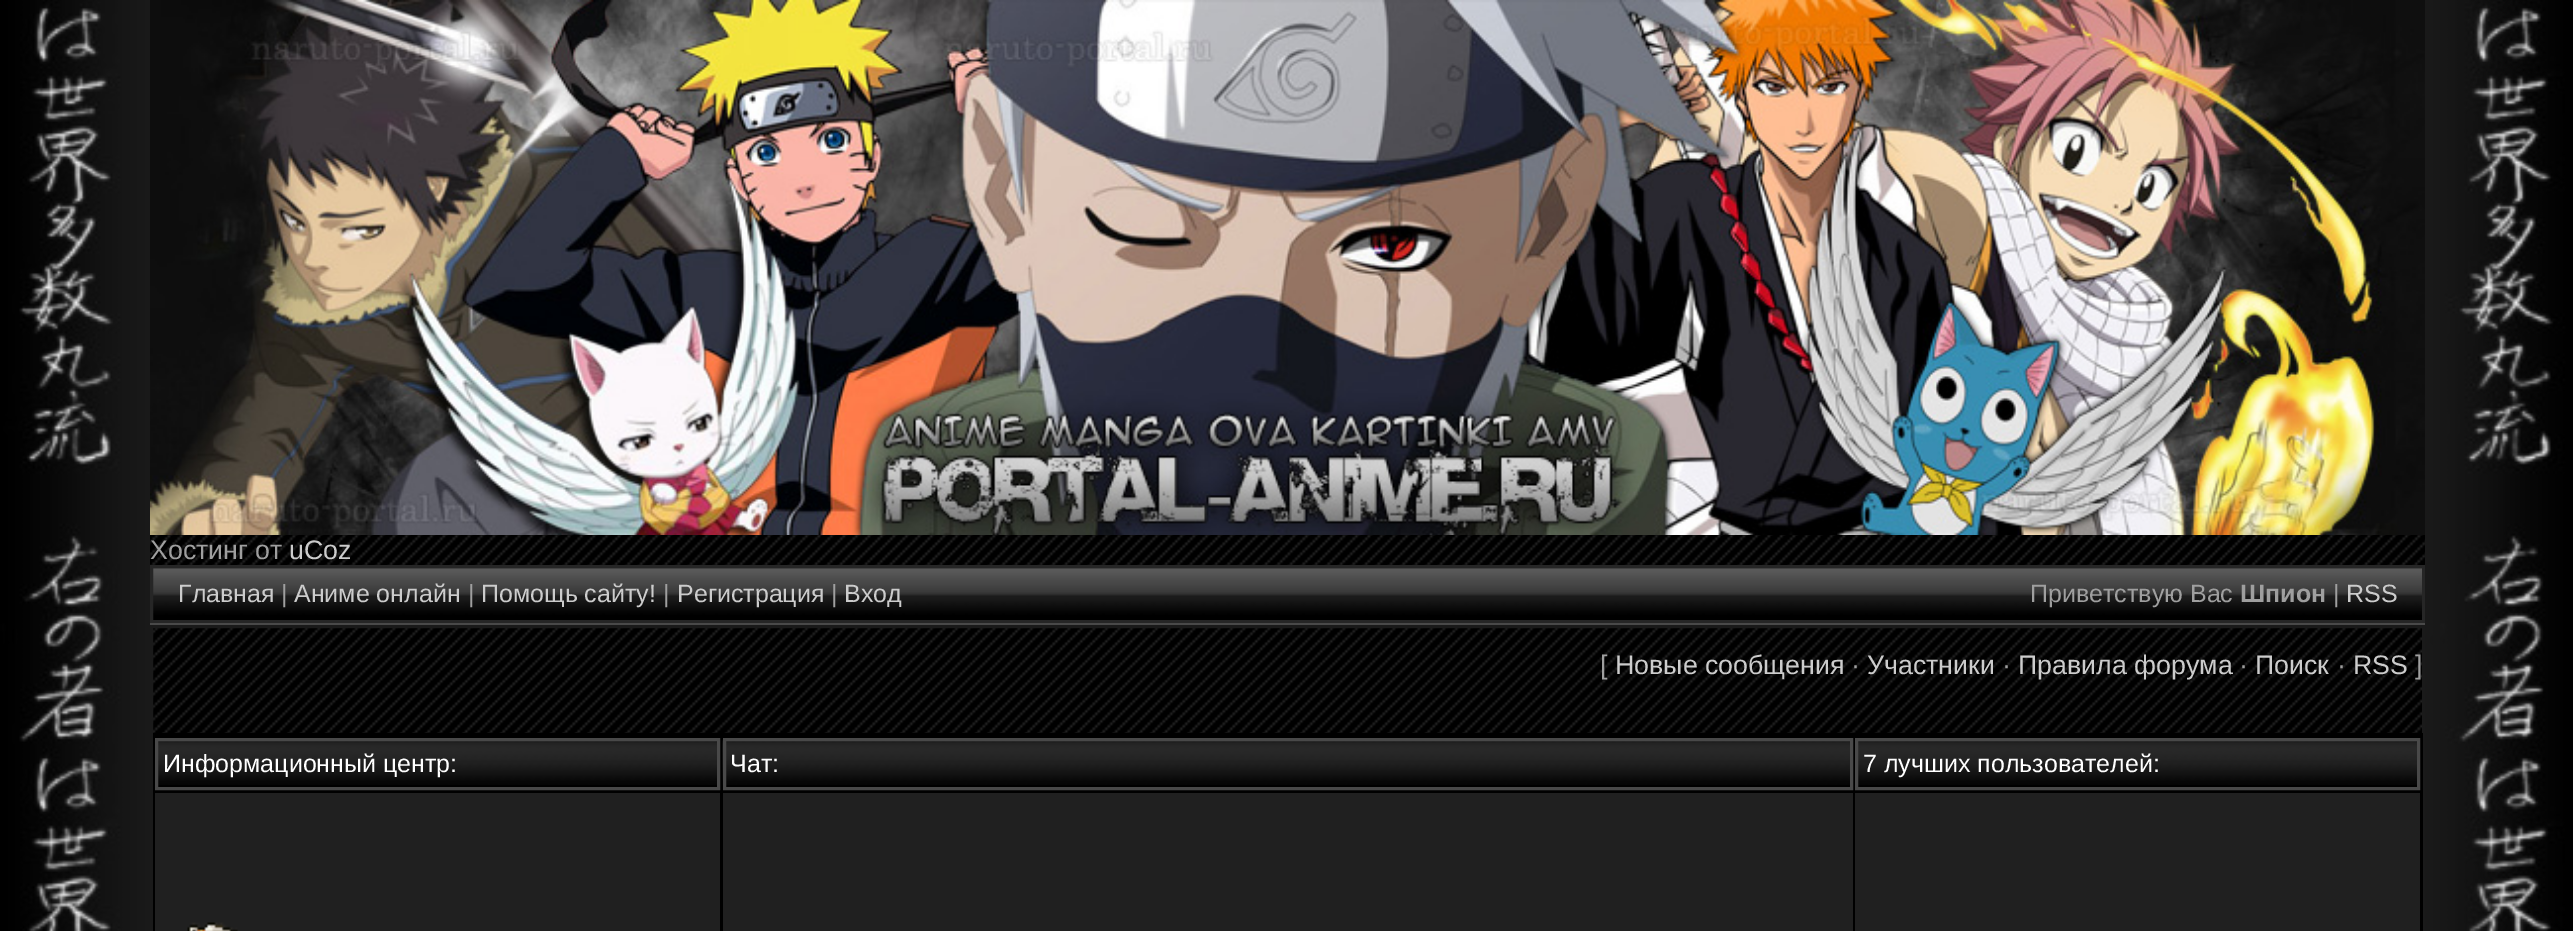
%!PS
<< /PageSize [2573 931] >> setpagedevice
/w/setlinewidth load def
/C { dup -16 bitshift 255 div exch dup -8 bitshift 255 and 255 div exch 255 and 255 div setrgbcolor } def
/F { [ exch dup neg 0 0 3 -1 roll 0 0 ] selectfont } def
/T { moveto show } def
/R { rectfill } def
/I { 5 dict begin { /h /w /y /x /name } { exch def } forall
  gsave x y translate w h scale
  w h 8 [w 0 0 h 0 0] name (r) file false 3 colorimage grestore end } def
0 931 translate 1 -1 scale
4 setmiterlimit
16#FFFFFF C
0 0 2573 931 R
(1.rgb) 150 535 2275 30 I
(2.rgb) 0 0 150 931 I
(3.rgb) 150 0 2275 535 I
/LiberationSans-Regular 26.75 F
16#9F9F9F C
(Хостинг от) 150 559 T
16#CCCCCC C
(uCoz) 289 559 T
(4.rgb) 153 568 2269 52 I
16#262626 C
3 w
151.5 566.5 2272 55 rectstroke
/LiberationSans-Regular 25 F
16#CCCCCC C
(Главная) 178 602 T
16#9F9F9F C
(|) 281 602 T
16#CCCCCC C
(Аниме онлайн) 294 602 T
16#9F9F9F C
(|) 468 602 T
16#CCCCCC C
(Помощь сайту!) 481 602 T
16#9F9F9F C
(|) 663 602 T
16#CCCCCC C
(Регистрация) 677 602 T
16#9F9F9F C
(|) 831 602 T
16#CCCCCC C
(Вход) 844 602 T
16#9F9F9F C
(Приветствую Вас) 2030 602 T
/LiberationSans-Bold 25 F
(Шпион) 2240 602 T
/LiberationSans-Regular 25 F
(|) 2333 602 T
16#CCCCCC C
(RSS) 2346 602 T
16#494949 C
150 623 2275 2 R
(5.rgb) 153 628 2269 105 I
16#1A1A1A C
151.5 626.5 2272 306 rectstroke
/LiberationSans-Regular 26.75 F
16#9F9F9F C
([) 1600 674 T
16#CCCCCC C
(Новые сообщения) 1615 674 T
16#9F9F9F C
(·) 1851 674 T
16#CCCCCC C
(Участники) 1867 674 T
16#9F9F9F C
(·) 2002 674 T
16#CCCCCC C
(Правила форума) 2018 674 T
16#9F9F9F C
(·) 2239 674 T
16#CCCCCC C
(Поиск) 2255 674 T
16#9F9F9F C
(·) 2337 674 T
16#CCCCCC C
(RSS) 2353 674 T
16#9F9F9F C
(]) 2415 674 T
16#000000 C
153 733 2270 198 R
(6.rgb) 158 741 559 44 I
16#494949 C
156.5 739.5 562 49 rectstroke
/LiberationSans-Regular 25 F
16#FFFFFF C
(Информационный центр:) 163 772 T
(7.rgb) 722 739 1128 46 I
16#494949 C
724.5 739.5 1127 49 rectstroke
16#FFFFFF C
(Чат:) 730 772 T
(8.rgb) 1858 741 559 44 I
16#494949 C
1856.5 739.5 562 49 rectstroke
16#FFFFFF C
(7 лучших пользователей:) 1863 772 T
16#202020 C
155 793 565 138 R
(9.rgb) 187 922 51 9 I
723 793 1130 138 R
1855 793 565 138 R
(10.rgb) 2425 0 148 931 I
showpage
